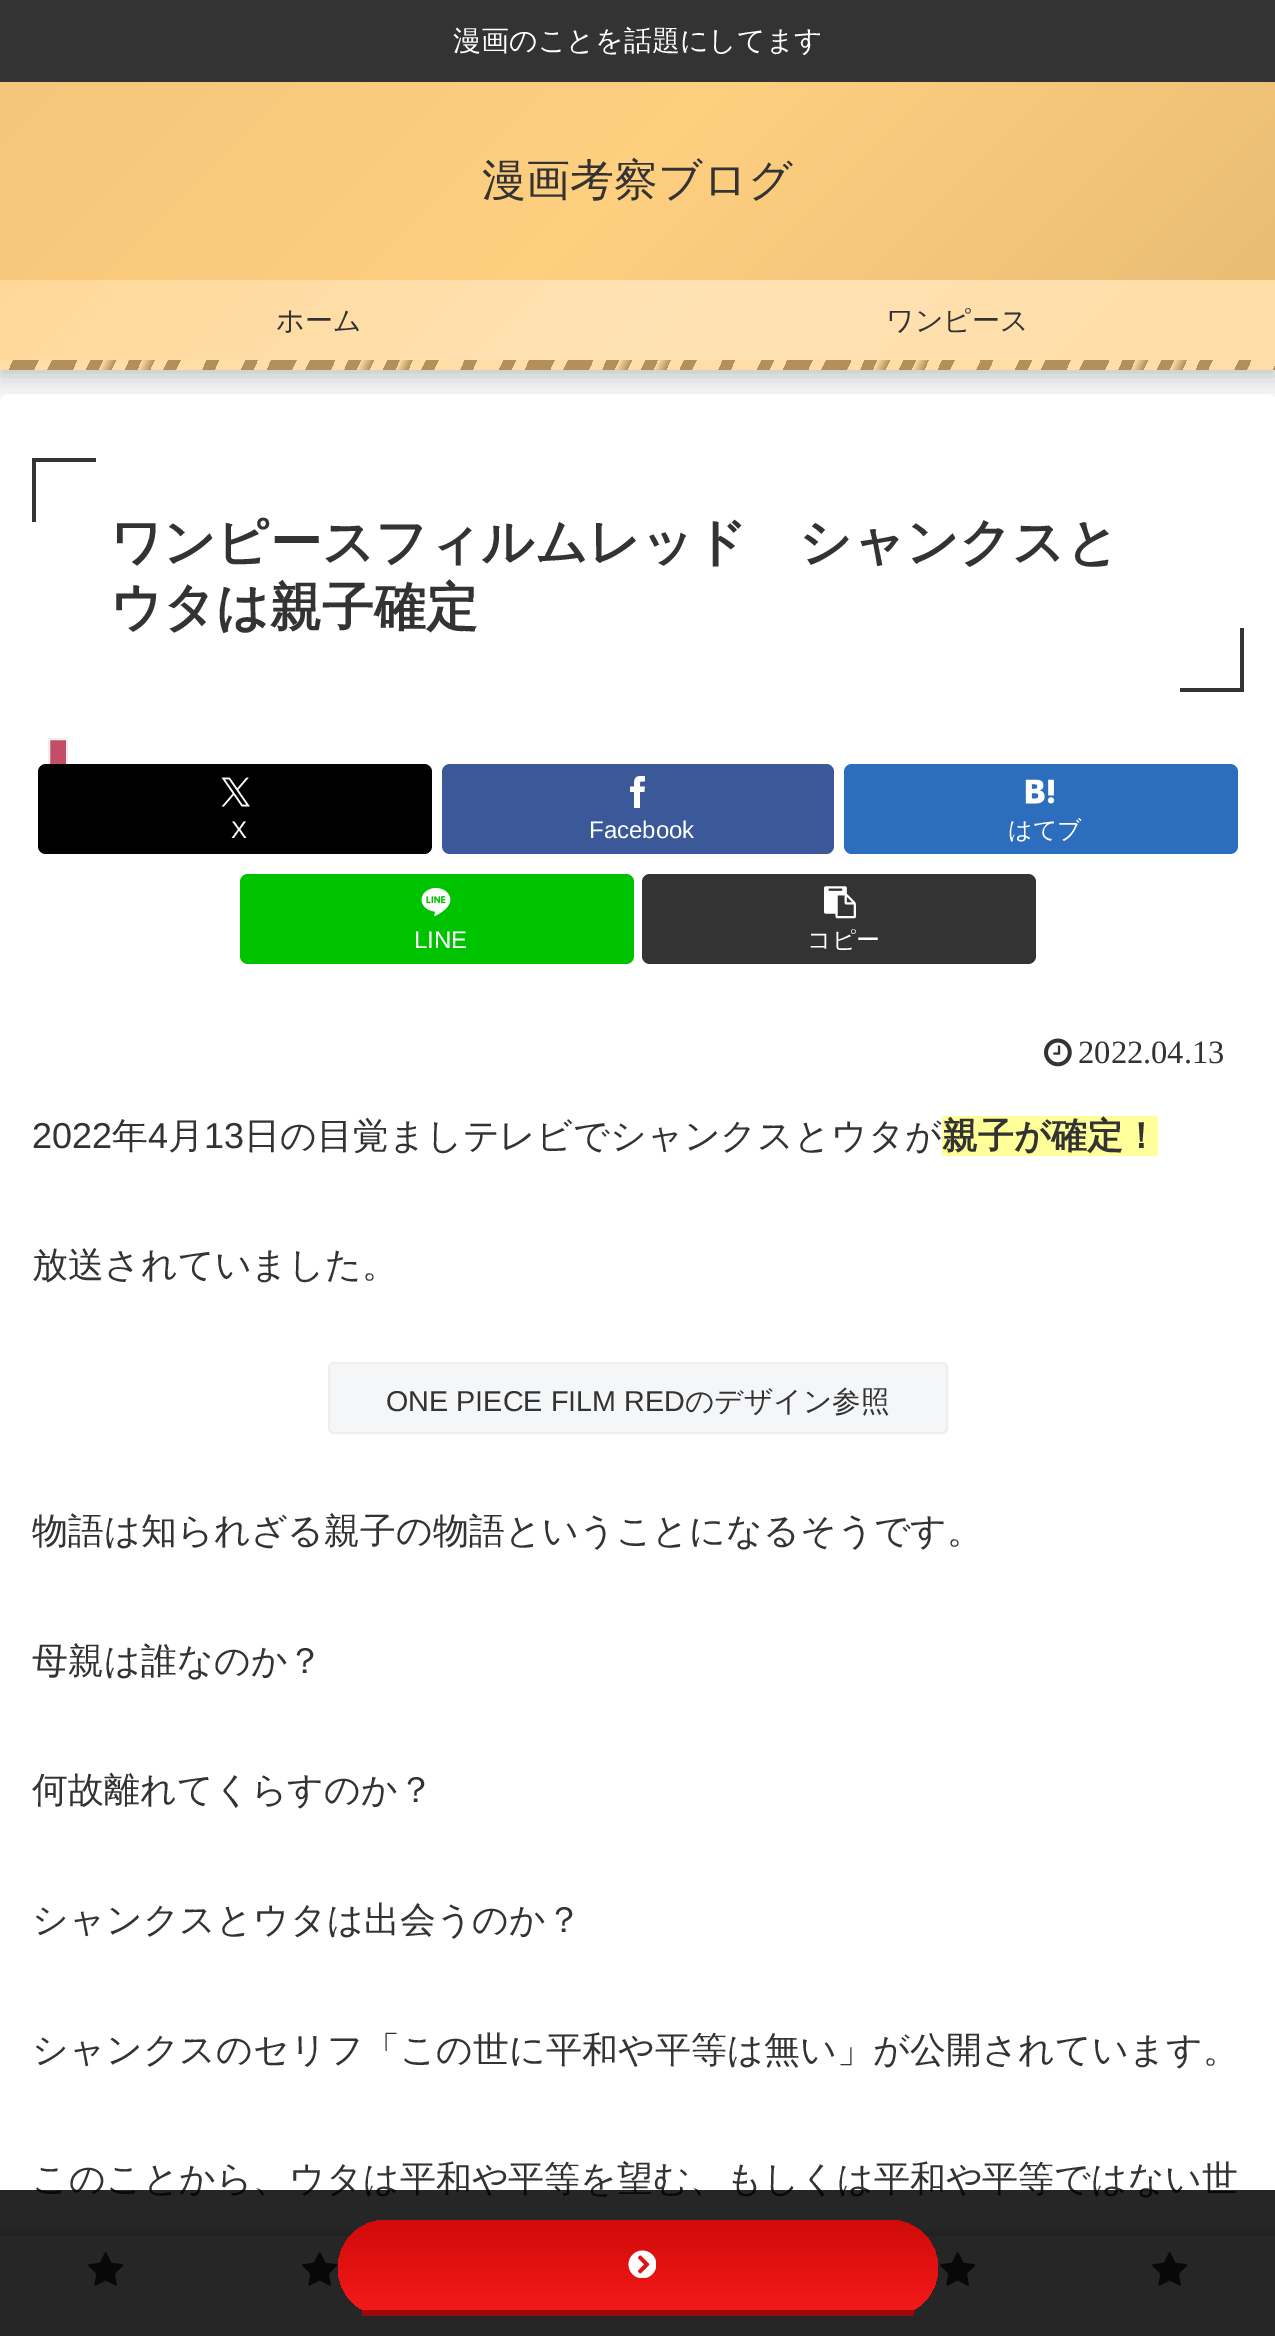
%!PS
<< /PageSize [1275 2336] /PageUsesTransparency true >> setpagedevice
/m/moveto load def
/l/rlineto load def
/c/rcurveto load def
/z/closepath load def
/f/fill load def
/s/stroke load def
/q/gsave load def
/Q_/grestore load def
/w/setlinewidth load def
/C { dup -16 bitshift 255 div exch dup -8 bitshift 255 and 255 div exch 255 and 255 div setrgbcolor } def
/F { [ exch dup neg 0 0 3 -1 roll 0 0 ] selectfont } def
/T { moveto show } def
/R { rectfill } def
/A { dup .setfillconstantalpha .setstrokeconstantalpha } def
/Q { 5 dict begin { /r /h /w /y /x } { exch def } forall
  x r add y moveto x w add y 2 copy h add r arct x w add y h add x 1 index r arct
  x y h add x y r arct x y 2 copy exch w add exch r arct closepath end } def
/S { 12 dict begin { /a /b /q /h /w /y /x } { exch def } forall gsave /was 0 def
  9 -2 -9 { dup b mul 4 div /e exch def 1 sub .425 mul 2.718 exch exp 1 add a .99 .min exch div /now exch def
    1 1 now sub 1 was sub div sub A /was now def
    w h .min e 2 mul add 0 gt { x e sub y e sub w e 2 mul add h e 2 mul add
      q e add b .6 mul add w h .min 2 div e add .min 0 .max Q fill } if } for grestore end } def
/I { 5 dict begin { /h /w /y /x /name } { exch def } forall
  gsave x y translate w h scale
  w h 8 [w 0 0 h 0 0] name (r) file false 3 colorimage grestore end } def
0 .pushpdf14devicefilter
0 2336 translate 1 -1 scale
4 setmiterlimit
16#F4F5F7 C
0 0 1275 2336 R
16#000000 C
0 6 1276 370 0 10 .2 S
q 0 82 m 1275 0 l 0 198 l -1275 0 l z clip newpath
<< /ShadingType 2 /ColorSpace /DeviceRGB /Coords [229 -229 1047 589] /Extend [true true] /Function << /FunctionType 3 /Domain [0 1] /Functions [<< /FunctionType 2 /Domain [0 1] /C0 [.953 .773 .478] /C1 [1 .812 .502] /N 1 >> << /FunctionType 2 /Domain [0 1] /C0 [1 .812 .502] /C1 [.902 .733 .451] /N 1 >>] /Bounds [.5] /Encode [0 1 0 1] >> >> shfill Q_
16#333333 C
0 0 1275 82 R
/WenQuanYiZenHei-Medium 28 F
16#FFFFFF C
(漫画のことを話題にしてます) 453 50 T
/WenQuanYiZenHei-Medium 44 F
16#333333 C
(漫画考察ブログ) 482 195 T
q 0 280 m 1275 0 l 0 80 l -1275 0 l z clip newpath
<< /ShadingType 2 /ColorSpace /DeviceRGB /Coords [299 -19 977 659] /Extend [true true] /Function << /FunctionType 3 /Domain [0 1] /Functions [<< /FunctionType 2 /Domain [0 1] /C0 [1 .847 .6] /C1 [1 .886 .702] /N 1 >> << /FunctionType 2 /Domain [0 1] /C0 [1 .886 .702] /C1 [1 .867 .651] /N 1 >>] /Bounds [.5] /Encode [0 1 0 1] >> >> shfill Q_
/WenQuanYiZenHei-Medium 28 F
(ホーム) 276 330 T
(ワンピース) 886 330 T
q 0 360 m 1275 0 l 0 10 l -1275 0 l z clip newpath
<< /ShadingType 2 /ColorSpace /DeviceRGB /Coords [112 120 1172 614] /Extend [true true] /Function << /FunctionType 3 /Domain [0 1] /Functions [<< /FunctionType 2 /Domain [0 1] /C0 [1 .867 .651] /C1 [1 .867 .651] /N 1 >> << /FunctionType 2 /Domain [0 1] /C0 [.702 .565 .353] /C1 [.702 .565 .353] /N 1 >> << /FunctionType 2 /Domain [0 1] /C0 [.702 .565 .353] /C1 [.702 .565 .353] /N 1 >> << /FunctionType 2 /Domain [0 1] /C0 [1 .867 .651] /C1 [1 .867 .651] /N 1 >> << /FunctionType 2 /Domain [0 1] /C0 [.702 .565 .353] /C1 [.702 .565 .353] /N 1 >> << /FunctionType 2 /Domain [0 1] /C0 [.702 .565 .353] /C1 [.702 .565 .353] /N 1 >> << /FunctionType 2 /Domain [0 1] /C0 [1 .867 .651] /C1 [1 .867 .651] /N 1 >> << /FunctionType 2 /Domain [0 1] /C0 [.702 .565 .353] /C1 [.702 .565 .353] /N 1 >> << /FunctionType 2 /Domain [0 1] /C0 [1 .867 .651] /C1 [.702 .565 .353] /N 1 >> << /FunctionType 2 /Domain [0 1] /C0 [1 .867 .651] /C1 [1 .867 .651] /N 1 >> << /FunctionType 2 /Domain [0 1] /C0 [.702 .565 .353] /C1 [.702 .565 .353] /N 1 >> << /FunctionType 2 /Domain [0 1] /C0 [1 .867 .651] /C1 [.702 .565 .353] /N 1 >> << /FunctionType 2 /Domain [0 1] /C0 [1 .867 .651] /C1 [1 .867 .651] /N 1 >> << /FunctionType 2 /Domain [0 1] /C0 [.702 .565 .353] /C1 [.702 .565 .353] /N 1 >> << /FunctionType 2 /Domain [0 1] /C0 [1 .867 .651] /C1 [1 .867 .651] /N 1 >> << /FunctionType 2 /Domain [0 1] /C0 [1 .867 .651] /C1 [1 .867 .651] /N 1 >> << /FunctionType 2 /Domain [0 1] /C0 [.702 .565 .353] /C1 [.702 .565 .353] /N 1 >> << /FunctionType 2 /Domain [0 1] /C0 [1 .867 .651] /C1 [1 .867 .651] /N 1 >> << /FunctionType 2 /Domain [0 1] /C0 [1 .867 .651] /C1 [1 .867 .651] /N 1 >> << /FunctionType 2 /Domain [0 1] /C0 [.702 .565 .353] /C1 [.702 .565 .353] /N 1 >> << /FunctionType 2 /Domain [0 1] /C0 [1 .867 .651] /C1 [1 .867 .651] /N 1 >> << /FunctionType 2 /Domain [0 1] /C0 [.702 .565 .353] /C1 [.702 .565 .353] /N 1 >> << /FunctionType 2 /Domain [0 1] /C0 [.702 .565 .353] /C1 [.702 .565 .353] /N 1 >> << /FunctionType 2 /Domain [0 1] /C0 [1 .867 .651] /C1 [1 .867 .651] /N 1 >> << /FunctionType 2 /Domain [0 1] /C0 [.702 .565 .353] /C1 [.702 .565 .353] /N 1 >> << /FunctionType 2 /Domain [0 1] /C0 [.702 .565 .353] /C1 [.702 .565 .353] /N 1 >> << /FunctionType 2 /Domain [0 1] /C0 [1 .867 .651] /C1 [1 .867 .651] /N 1 >> << /FunctionType 2 /Domain [0 1] /C0 [.702 .565 .353] /C1 [.702 .565 .353] /N 1 >> << /FunctionType 2 /Domain [0 1] /C0 [1 .867 .651] /C1 [.702 .565 .353] /N 1 >> << /FunctionType 2 /Domain [0 1] /C0 [1 .867 .651] /C1 [1 .867 .651] /N 1 >> << /FunctionType 2 /Domain [0 1] /C0 [.702 .565 .353] /C1 [.702 .565 .353] /N 1 >> << /FunctionType 2 /Domain [0 1] /C0 [1 .867 .651] /C1 [.702 .565 .353] /N 1 >> << /FunctionType 2 /Domain [0 1] /C0 [1 .867 .651] /C1 [1 .867 .651] /N 1 >> << /FunctionType 2 /Domain [0 1] /C0 [.702 .565 .353] /C1 [.702 .565 .353] /N 1 >> << /FunctionType 2 /Domain [0 1] /C0 [1 .867 .651] /C1 [1 .867 .651] /N 1 >> << /FunctionType 2 /Domain [0 1] /C0 [1 .867 .651] /C1 [1 .867 .651] /N 1 >> << /FunctionType 2 /Domain [0 1] /C0 [.702 .565 .353] /C1 [.702 .565 .353] /N 1 >> << /FunctionType 2 /Domain [0 1] /C0 [1 .867 .651] /C1 [1 .867 .651] /N 1 >> << /FunctionType 2 /Domain [0 1] /C0 [1 .867 .651] /C1 [1 .867 .651] /N 1 >> << /FunctionType 2 /Domain [0 1] /C0 [.702 .565 .353] /C1 [.702 .565 .353] /N 1 >> << /FunctionType 2 /Domain [0 1] /C0 [1 .867 .651] /C1 [1 .867 .651] /N 1 >> << /FunctionType 2 /Domain [0 1] /C0 [.702 .565 .353] /C1 [.702 .565 .353] /N 1 >> << /FunctionType 2 /Domain [0 1] /C0 [.702 .565 .353] /C1 [.702 .565 .353] /N 1 >> << /FunctionType 2 /Domain [0 1] /C0 [1 .867 .651] /C1 [1 .867 .651] /N 1 >> << /FunctionType 2 /Domain [0 1] /C0 [.702 .565 .353] /C1 [.702 .565 .353] /N 1 >> << /FunctionType 2 /Domain [0 1] /C0 [.702 .565 .353] /C1 [.702 .565 .353] /N 1 >> << /FunctionType 2 /Domain [0 1] /C0 [1 .867 .651] /C1 [1 .867 .651] /N 1 >> << /FunctionType 2 /Domain [0 1] /C0 [.702 .565 .353] /C1 [.702 .565 .353] /N 1 >> << /FunctionType 2 /Domain [0 1] /C0 [1 .867 .651] /C1 [.702 .565 .353] /N 1 >> << /FunctionType 2 /Domain [0 1] /C0 [1 .867 .651] /C1 [1 .867 .651] /N 1 >> << /FunctionType 2 /Domain [0 1] /C0 [.702 .565 .353] /C1 [.702 .565 .353] /N 1 >> << /FunctionType 2 /Domain [0 1] /C0 [1 .867 .651] /C1 [.702 .565 .353] /N 1 >> << /FunctionType 2 /Domain [0 1] /C0 [1 .867 .651] /C1 [1 .867 .651] /N 1 >> << /FunctionType 2 /Domain [0 1] /C0 [.702 .565 .353] /C1 [.702 .565 .353] /N 1 >> << /FunctionType 2 /Domain [0 1] /C0 [1 .867 .651] /C1 [1 .867 .651] /N 1 >> << /FunctionType 2 /Domain [0 1] /C0 [1 .867 .651] /C1 [1 .867 .651] /N 1 >> << /FunctionType 2 /Domain [0 1] /C0 [.702 .565 .353] /C1 [.702 .565 .353] /N 1 >> << /FunctionType 2 /Domain [0 1] /C0 [1 .867 .651] /C1 [1 .867 .651] /N 1 >> << /FunctionType 2 /Domain [0 1] /C0 [1 .867 .651] /C1 [1 .867 .651] /N 1 >> << /FunctionType 2 /Domain [0 1] /C0 [.702 .565 .353] /C1 [.702 .565 .353] /N 1 >> << /FunctionType 2 /Domain [0 1] /C0 [1 .867 .651] /C1 [1 .867 .651] /N 1 >> << /FunctionType 2 /Domain [0 1] /C0 [.702 .565 .353] /C1 [.702 .565 .353] /N 1 >> << /FunctionType 2 /Domain [0 1] /C0 [.702 .565 .353] /C1 [.702 .565 .353] /N 1 >> << /FunctionType 2 /Domain [0 1] /C0 [1 .867 .651] /C1 [1 .867 .651] /N 1 >> << /FunctionType 2 /Domain [0 1] /C0 [.702 .565 .353] /C1 [.702 .565 .353] /N 1 >> << /FunctionType 2 /Domain [0 1] /C0 [.702 .565 .353] /C1 [.702 .565 .353] /N 1 >> << /FunctionType 2 /Domain [0 1] /C0 [1 .867 .651] /C1 [1 .867 .651] /N 1 >> << /FunctionType 2 /Domain [0 1] /C0 [.702 .565 .353] /C1 [.702 .565 .353] /N 1 >> << /FunctionType 2 /Domain [0 1] /C0 [1 .867 .651] /C1 [.702 .565 .353] /N 1 >> << /FunctionType 2 /Domain [0 1] /C0 [1 .867 .651] /C1 [1 .867 .651] /N 1 >> << /FunctionType 2 /Domain [0 1] /C0 [.702 .565 .353] /C1 [.702 .565 .353] /N 1 >> << /FunctionType 2 /Domain [0 1] /C0 [1 .867 .651] /C1 [.702 .565 .353] /N 1 >> << /FunctionType 2 /Domain [0 1] /C0 [1 .867 .651] /C1 [1 .867 .651] /N 1 >> << /FunctionType 2 /Domain [0 1] /C0 [.702 .565 .353] /C1 [.702 .565 .353] /N 1 >> << /FunctionType 2 /Domain [0 1] /C0 [1 .867 .651] /C1 [1 .867 .651] /N 1 >> << /FunctionType 2 /Domain [0 1] /C0 [1 .867 .651] /C1 [1 .867 .651] /N 1 >> << /FunctionType 2 /Domain [0 1] /C0 [.702 .565 .353] /C1 [.702 .565 .353] /N 1 >> << /FunctionType 2 /Domain [0 1] /C0 [1 .867 .651] /C1 [1 .867 .651] /N 1 >> << /FunctionType 2 /Domain [0 1] /C0 [1 .867 .651] /C1 [1 .867 .651] /N 1 >> << /FunctionType 2 /Domain [0 1] /C0 [.702 .565 .353] /C1 [.702 .565 .353] /N 1 >> << /FunctionType 2 /Domain [0 1] /C0 [1 .867 .651] /C1 [1 .867 .651] /N 1 >> << /FunctionType 2 /Domain [0 1] /C0 [.702 .565 .353] /C1 [.702 .565 .353] /N 1 >> << /FunctionType 2 /Domain [0 1] /C0 [.702 .565 .353] /C1 [.702 .565 .353] /N 1 >> << /FunctionType 2 /Domain [0 1] /C0 [1 .867 .651] /C1 [1 .867 .651] /N 1 >> << /FunctionType 2 /Domain [0 1] /C0 [.702 .565 .353] /C1 [.702 .565 .353] /N 1 >> << /FunctionType 2 /Domain [0 1] /C0 [.702 .565 .353] /C1 [.702 .565 .353] /N 1 >> << /FunctionType 2 /Domain [0 1] /C0 [1 .867 .651] /C1 [1 .867 .651] /N 1 >> << /FunctionType 2 /Domain [0 1] /C0 [.702 .565 .353] /C1 [.702 .565 .353] /N 1 >> << /FunctionType 2 /Domain [0 1] /C0 [1 .867 .651] /C1 [.702 .565 .353] /N 1 >> << /FunctionType 2 /Domain [0 1] /C0 [1 .867 .651] /C1 [1 .867 .651] /N 1 >> << /FunctionType 2 /Domain [0 1] /C0 [.702 .565 .353] /C1 [.702 .565 .353] /N 1 >> << /FunctionType 2 /Domain [0 1] /C0 [1 .867 .651] /C1 [.702 .565 .353] /N 1 >> << /FunctionType 2 /Domain [0 1] /C0 [1 .867 .651] /C1 [1 .867 .651] /N 1 >> << /FunctionType 2 /Domain [0 1] /C0 [.702 .565 .353] /C1 [.702 .565 .353] /N 1 >> << /FunctionType 2 /Domain [0 1] /C0 [1 .867 .651] /C1 [1 .867 .651] /N 1 >> << /FunctionType 2 /Domain [0 1] /C0 [1 .867 .651] /C1 [1 .867 .651] /N 1 >> << /FunctionType 2 /Domain [0 1] /C0 [.702 .565 .353] /C1 [.702 .565 .353] /N 1 >> << /FunctionType 2 /Domain [0 1] /C0 [1 .867 .651] /C1 [1 .867 .651] /N 1 >> << /FunctionType 2 /Domain [0 1] /C0 [1 .867 .651] /C1 [1 .867 .651] /N 1 >> << /FunctionType 2 /Domain [0 1] /C0 [.702 .565 .353] /C1 [.702 .565 .353] /N 1 >>] /Bounds [.01 .02 .03 .04 .05 .06 .07 .08 .09 .1 .11 .12 .13 .14 .15 .16 .17 .18 .19 .2 .21 .22 .23 .24 .25 .26 .27 .28 .29 .3 .31 .32 .33 .34 .35 .36 .37 .38 .39 .4 .41 .42 .43 .44 .45 .46 .47 .48 .49 .5 .51 .52 .53 .54 .55 .56 .57 .58 .59 .6 .61 .62 .63 .64 .65 .66 .67 .68 .69 .7 .71 .72 .73 .74 .75 .76 .77 .78 .79 .8 .81 .82 .83 .84 .85 .86 .87 .88 .89 .9 .91 .92 .93 .94 .95 .96 .97 .98 .99] /Encode [0 1 0 1 0 1 0 1 0 1 0 1 0 1 0 1 0 1 0 1 0 1 0 1 0 1 0 1 0 1 0 1 0 1 0 1 0 1 0 1 0 1 0 1 0 1 0 1 0 1 0 1 0 1 0 1 0 1 0 1 0 1 0 1 0 1 0 1 0 1 0 1 0 1 0 1 0 1 0 1 0 1 0 1 0 1 0 1 0 1 0 1 0 1 0 1 0 1 0 1 0 1 0 1 0 1 0 1 0 1 0 1 0 1 0 1 0 1 0 1 0 1 0 1 0 1 0 1 0 1 0 1 0 1 0 1 0 1 0 1 0 1 0 1 0 1 0 1 0 1 0 1 0 1 0 1 0 1 0 1 0 1 0 1 0 1 0 1 0 1 0 1 0 1 0 1 0 1 0 1 0 1 0 1 0 1 0 1 0 1 0 1 0 1 0 1 0 1 0 1] >> >> shfill Q_
16#FFFFFF C
0 394 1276 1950 8 Q f
16#333333 C
32 458 64 4 R
32 458 4 64 R
/WenQuanYiZenHei-Bold 52 F
(ワンピースフィルムレッド　シャンクスと) 110 560 T
(ウタは親子確定) 110 625 T
1240 628 4 64 R
1180 688 64 4 R
16#C34E65 C
50 740 16 24 R
16#F0F0F0 C
2 w
49 739 18 46 rectstroke
16#000000 C
38 764 394 90 8 Q f
(1.rgb) 221 777 29 30 I
/LiberationSans-Regular 24 F
16#FFFFFF C
(X) 231 838 T
16#3B5998 C
442 764 392 90 8 Q f
(2.rgb) 630 776 15 32 I
16#FFFFFF C
(Facebook) 589 838 T
16#2C6EBD C
844 764 394 90 8 Q f
(3.rgb) 1025 779 30 25 I
/WenQuanYiZenHei-Medium 24 F
16#FFFFFF C
(はてブ) 1008 838 T
16#00C300 C
240 874 394 90 8 Q f
(4.rgb) 421 887 30 30 I
/LiberationSans-Regular 24 F
16#FFFFFF C
(LINE) 414 948 T
16#333333 C
642 874 394 90 8 Q f
(5.rgb) 824 886 32 33 I
/WenQuanYiZenHei-Medium 24 F
16#FFFFFF C
(コピー) 807 948 T
(6.rgb) 1044 1038 28 29 I
/LiberationSerif-Regular 32.5 F
16#333333 C
(2022.04.13) 1078 1063 T
/LiberationSans-Regular 36 F
(2022) 32 1148 T
/WenQuanYiZenHei-Medium 36 F
(年) 112 1148 T
/LiberationSans-Regular 36 F
(4) 148 1148 T
/WenQuanYiZenHei-Medium 36 F
(月) 168 1148 T
/LiberationSans-Regular 36 F
(13) 204 1148 T
/WenQuanYiZenHei-Medium 36 F
(日の目覚ましテレビでシャンクスとウタが) 244 1148 T
16#FFFF99 C
942 1116 216 40 R
/WenQuanYiZenHei-Bold 36 F
16#333333 C
(親子が確定！) 942 1148 T
/WenQuanYiZenHei-Medium 36 F
(放送されていました。) 32 1277 T
16#F5F6F7 C
329 1363 618 70 5 Q q f Q_
16#EEEEEE C
s
/LiberationSans-Regular 28.75 F
16#333333 C
(ONE PIECE FILM RED) 386 1411 T
/WenQuanYiZenHei-Medium 28.75 F
(のデザイン参照) 685 1411 T
/WenQuanYiZenHei-Medium 36 F
(物語は知られざる親子の物語ということになるそうです。) 32 1543 T
(母親は誰なのか？) 32 1673 T
(何故離れてくらすのか？) 32 1802 T
(シャンクスとウタは出会うのか？) 32 1932 T
(シャンクスのセリフ「この世に平和や平等は無い」が公開されています。) 32 2062 T
(このことから、ウタは平和や平等を望む、もしくは平和や平等ではない世) 32 2191 T
16#A9A9A9 C
0 2236 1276 100 0 5 1 S
16#FFFFFF C
0 2236 1275 100 R
(8.rgb) 88 2252 36 34 I
(8.rgb) 302 2252 36 34 I
(8.rgb) 940 2252 36 34 I
(8.rgb) 1152 2252 36 34 I
0.85 A
16#000000 C
0 2190 1275 146 R
q
338 2220 600 96 48 Q clip newpath
1 A
q 386 2220 m 504 0 l 26.5 0 48 21.5 48 48 c 0 42 l -600 0 l 0 -42 l 0 -26.5 21.5 -48 48 -48 c z clip newpath
<< /ShadingType 2 /ColorSpace /DeviceRGB /Coords [638 2220 638 2310] /Extend [true true] /Function << /FunctionType 2 /Domain [0 1] /C0 [.816 .039 .039] /C1 [.957 .098 .098] /N 1 >> >> shfill Q_
Q_
1 A
16#9F0808 C
362 2310 552 6 R
(7.rgb) 628 2250 28 28 I
.poppdf14devicefilter showpage
